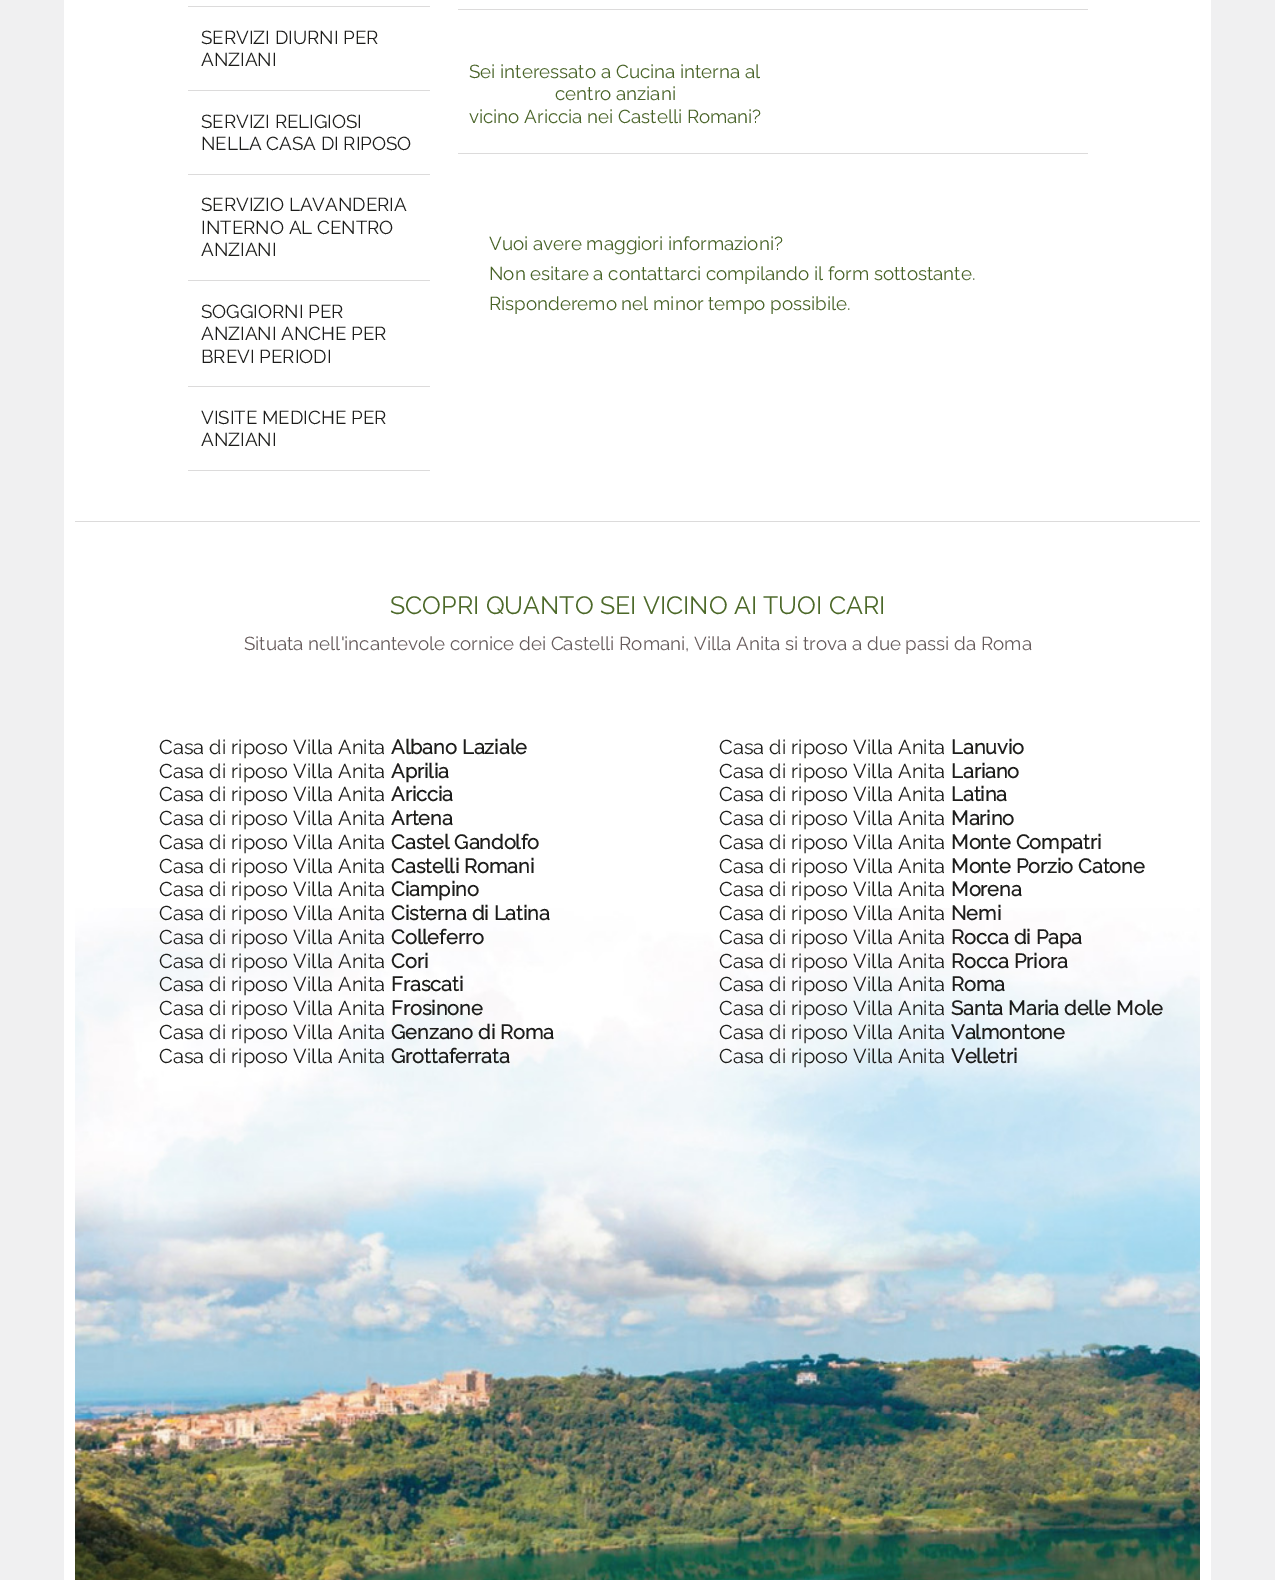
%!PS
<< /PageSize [1275 1580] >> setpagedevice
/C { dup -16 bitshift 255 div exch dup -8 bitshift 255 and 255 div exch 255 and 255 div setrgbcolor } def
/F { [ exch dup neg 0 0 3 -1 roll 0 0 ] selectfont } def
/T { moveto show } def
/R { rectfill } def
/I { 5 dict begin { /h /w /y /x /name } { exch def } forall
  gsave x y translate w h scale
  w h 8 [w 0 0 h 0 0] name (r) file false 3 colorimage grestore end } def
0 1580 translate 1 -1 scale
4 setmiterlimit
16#F0F0F1 C
0 0 1275 1580 R
16#FFFFFF C
64 0 1147 1580 R
16#DCDBDB C
188 6 242 1 R
188 90 242 1 R
/Raleway-Thin 18.75 F
16#1D1D1B C
(SERVIZI DIURNI PER) 201 44 T
(ANZIANI) 201 66 T
16#DCDBDB C
188 174 242 1 R
16#1D1D1B C
(SERVIZI RELIGIOSI) 201 128 T
(NELLA CASA DI RIPOSO) 201 150 T
16#DCDBDB C
188 280 242 1 R
16#1D1D1B C
(SERVIZIO LAVANDERIA) 201 211 T
(INTERNO AL CENTRO) 201 234 T
(ANZIANI) 201 256 T
16#DCDBDB C
188 386 242 1 R
16#1D1D1B C
(SOGGIORNI PER) 201 318 T
(ANZIANI ANCHE PER) 201 340 T
(BREVI PERIODI) 201 363 T
16#DCDBDB C
188 470 242 1 R
16#1D1D1B C
(VISITE MEDICHE PER) 201 424 T
(ANZIANI) 201 446 T
16#DCDBDB C
458 9 630 1 R
458 153 630 1 R
16#486327 C
(Sei interessato a Cucina interna al) 469 78 T
(centro anziani) 555 100 T
(vicino Ariccia nei Castelli Romani?) 469 123 T
(Vuoi avere maggiori informazioni?) 489 250 T
(Non esitare a contattarci compilando il form sottostante.) 489 280 T
(Risponderemo nel minor tempo possibile.) 489 310 T
(1.rgb) 75 908 1125 672 I
16#DCDBDB C
75 521 1125 1 R
/Raleway-Thin 25 F
16#4C6929 C
(SCOPRI QUANTO SEI VICINO AI TUOI CARI) 390 614 T
/Raleway-Thin 18.75 F
16#665B5B C
(Situata nell'incantevole cornice dei Castelli Romani, Villa Anita si trova a due passi da Roma) 244 650 T
/Raleway-Thin 20 F
16#1D1D1B C
(Casa di riposo Villa Anita) 159 754 T
/Raleway-Bold 20 F
(Albano Laziale) 391 754 T
/Raleway-Thin 20 F
(Casa di riposo Villa Anita) 159 778 T
/Raleway-Bold 20 F
(Aprilia) 391 778 T
/Raleway-Thin 20 F
(Casa di riposo Villa Anita) 159 801 T
/Raleway-Bold 20 F
(Ariccia) 391 801 T
/Raleway-Thin 20 F
(Casa di riposo Villa Anita) 159 825 T
/Raleway-Bold 20 F
(Artena) 391 825 T
/Raleway-Thin 20 F
(Casa di riposo Villa Anita) 159 849 T
/Raleway-Bold 20 F
(Castel Gandolfo) 391 849 T
/Raleway-Thin 20 F
(Casa di riposo Villa Anita) 159 873 T
/Raleway-Bold 20 F
(Castelli Romani) 391 873 T
/Raleway-Thin 20 F
(Casa di riposo Villa Anita) 159 896 T
/Raleway-Bold 20 F
(Ciampino) 391 896 T
/Raleway-Thin 20 F
(Casa di riposo Villa Anita) 159 920 T
/Raleway-Bold 20 F
(Cisterna di Latina) 391 920 T
/Raleway-Thin 20 F
(Casa di riposo Villa Anita) 159 944 T
/Raleway-Bold 20 F
(Colleferro) 391 944 T
/Raleway-Thin 20 F
(Casa di riposo Villa Anita) 159 968 T
/Raleway-Bold 20 F
(Cori) 391 968 T
/Raleway-Thin 20 F
(Casa di riposo Villa Anita) 159 991 T
/Raleway-Bold 20 F
(Frascati) 391 991 T
/Raleway-Thin 20 F
(Casa di riposo Villa Anita) 159 1015 T
/Raleway-Bold 20 F
(Frosinone) 391 1015 T
/Raleway-Thin 20 F
(Casa di riposo Villa Anita) 159 1039 T
/Raleway-Bold 20 F
(Genzano di Roma) 391 1039 T
/Raleway-Thin 20 F
(Casa di riposo Villa Anita) 159 1063 T
/Raleway-Bold 20 F
(Grottaferrata) 391 1063 T
/Raleway-Thin 20 F
(Casa di riposo Villa Anita) 719 754 T
/Raleway-Bold 20 F
(Lanuvio) 951 754 T
/Raleway-Thin 20 F
(Casa di riposo Villa Anita) 719 778 T
/Raleway-Bold 20 F
(Lariano) 951 778 T
/Raleway-Thin 20 F
(Casa di riposo Villa Anita) 719 801 T
/Raleway-Bold 20 F
(Latina) 951 801 T
/Raleway-Thin 20 F
(Casa di riposo Villa Anita) 719 825 T
/Raleway-Bold 20 F
(Marino) 951 825 T
/Raleway-Thin 20 F
(Casa di riposo Villa Anita) 719 849 T
/Raleway-Bold 20 F
(Monte Compatri) 951 849 T
/Raleway-Thin 20 F
(Casa di riposo Villa Anita) 719 873 T
/Raleway-Bold 20 F
(Monte Porzio Catone) 951 873 T
/Raleway-Thin 20 F
(Casa di riposo Villa Anita) 719 896 T
/Raleway-Bold 20 F
(Morena) 951 896 T
/Raleway-Thin 20 F
(Casa di riposo Villa Anita) 719 920 T
/Raleway-Bold 20 F
(Nemi) 951 920 T
/Raleway-Thin 20 F
(Casa di riposo Villa Anita) 719 944 T
/Raleway-Bold 20 F
(Rocca di Papa) 951 944 T
/Raleway-Thin 20 F
(Casa di riposo Villa Anita) 719 968 T
/Raleway-Bold 20 F
(Rocca Priora) 951 968 T
/Raleway-Thin 20 F
(Casa di riposo Villa Anita) 719 991 T
/Raleway-Bold 20 F
(Roma) 951 991 T
/Raleway-Thin 20 F
(Casa di riposo Villa Anita) 719 1015 T
/Raleway-Bold 20 F
(Santa Maria delle Mole) 951 1015 T
/Raleway-Thin 20 F
(Casa di riposo Villa Anita) 719 1039 T
/Raleway-Bold 20 F
(Valmontone) 951 1039 T
/Raleway-Thin 20 F
(Casa di riposo Villa Anita) 719 1063 T
/Raleway-Bold 20 F
(Velletri) 951 1063 T
showpage
